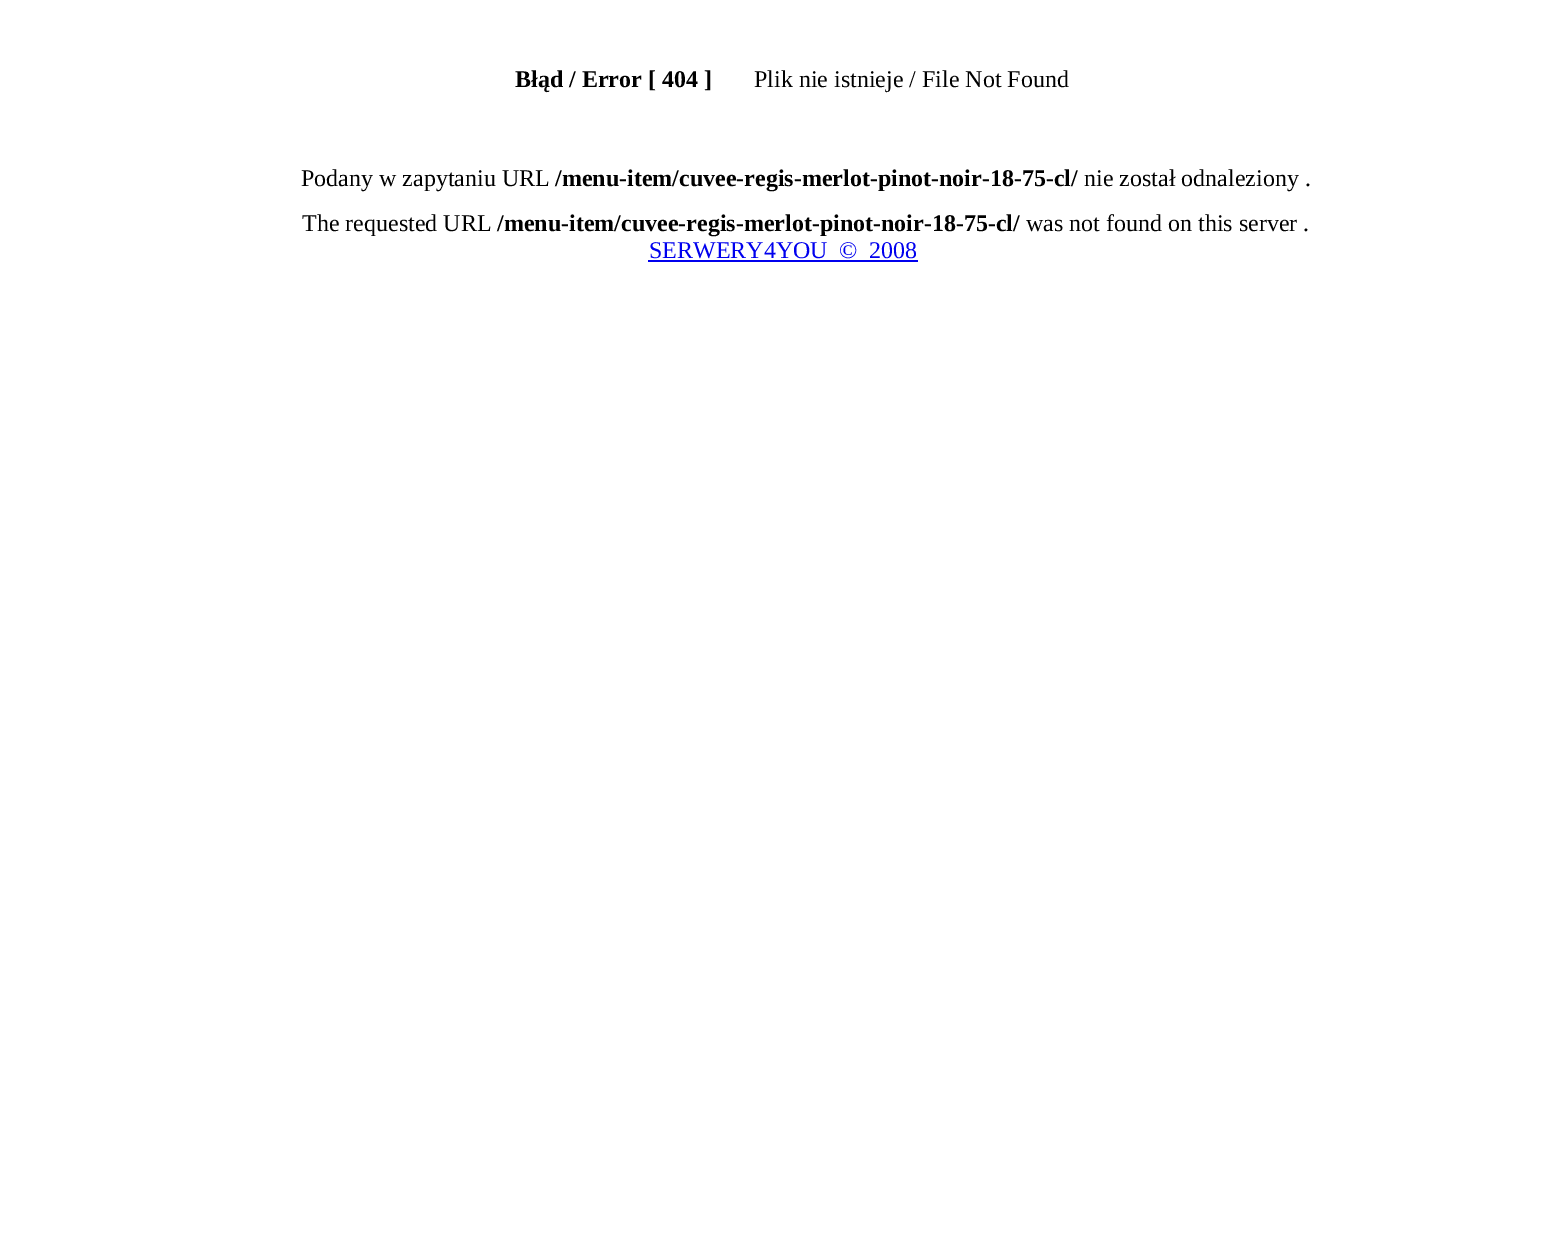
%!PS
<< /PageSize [1565 1234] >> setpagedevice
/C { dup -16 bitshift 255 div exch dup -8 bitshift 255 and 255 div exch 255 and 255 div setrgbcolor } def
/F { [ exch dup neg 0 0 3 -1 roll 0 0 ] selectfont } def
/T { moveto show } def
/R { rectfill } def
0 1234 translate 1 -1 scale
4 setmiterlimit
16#FFFFFF C
0 0 1565 1234 R
/LiberationSerif-Bold 24 F
16#000000 C
(Błąd / Error [ 404 ]) 515 87 T
/LiberationSerif-Regular 24 F
(Plik nie istnieje / File Not Found) 754 87 T
(Podany w zapytaniu URL) 301 186 T
/LiberationSerif-Bold 24 F
(/menu-item/cuvee-regis-merlot-pinot-noir-18-75-cl/) 555 186 T
/LiberationSerif-Regular 24 F
(nie został odnaleziony .) 1084 186 T
(The requested URL) 302 231 T
/LiberationSerif-Bold 24 F
(/menu-item/cuvee-regis-merlot-pinot-noir-18-75-cl/) 497 231 T
/LiberationSerif-Regular 24 F
(was not found on this server .) 1026 231 T
16#0000EE C
(SERWERY4YOU) 649 258 T
648 260 270 2 R
(©  2008) 839 258 T
showpage
